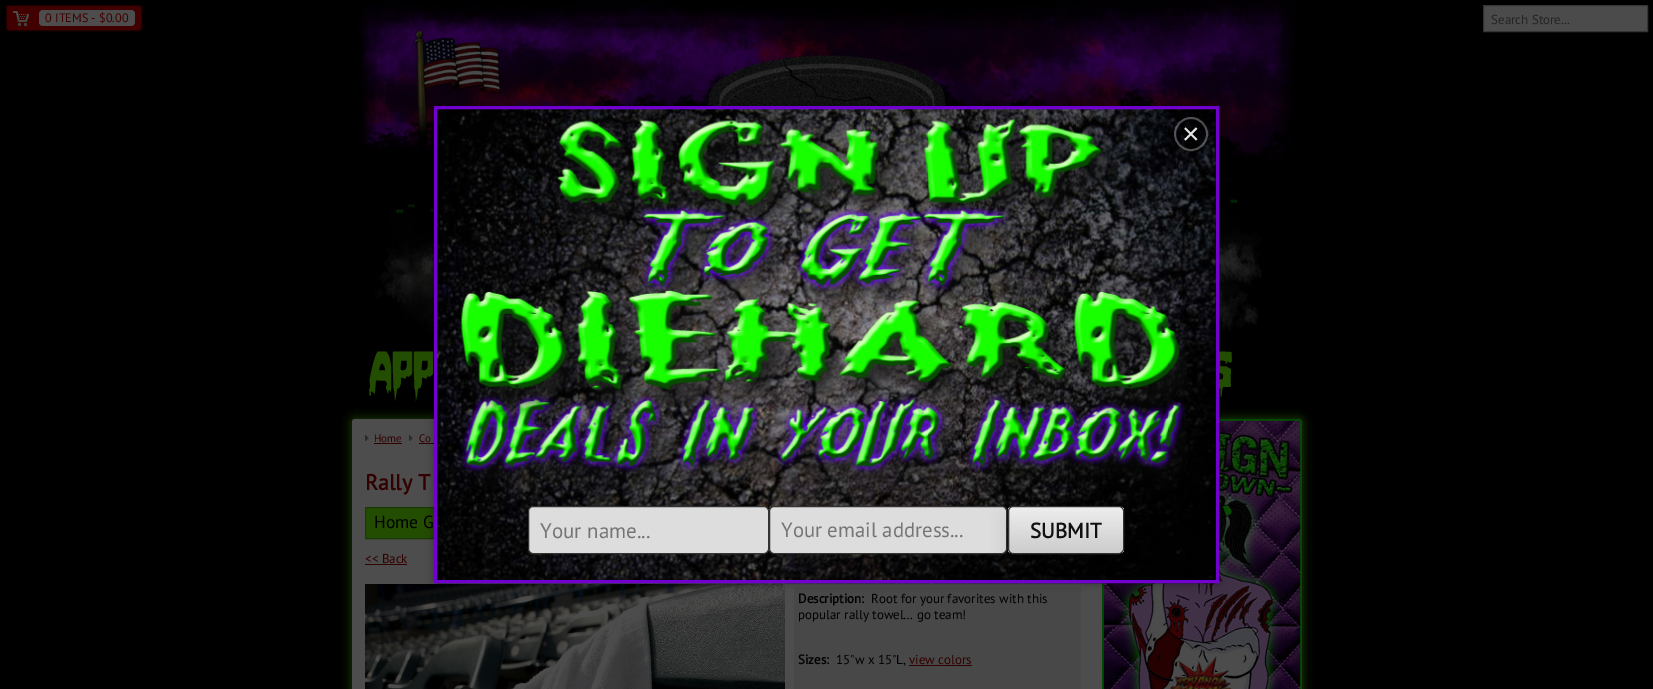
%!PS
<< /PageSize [1653 689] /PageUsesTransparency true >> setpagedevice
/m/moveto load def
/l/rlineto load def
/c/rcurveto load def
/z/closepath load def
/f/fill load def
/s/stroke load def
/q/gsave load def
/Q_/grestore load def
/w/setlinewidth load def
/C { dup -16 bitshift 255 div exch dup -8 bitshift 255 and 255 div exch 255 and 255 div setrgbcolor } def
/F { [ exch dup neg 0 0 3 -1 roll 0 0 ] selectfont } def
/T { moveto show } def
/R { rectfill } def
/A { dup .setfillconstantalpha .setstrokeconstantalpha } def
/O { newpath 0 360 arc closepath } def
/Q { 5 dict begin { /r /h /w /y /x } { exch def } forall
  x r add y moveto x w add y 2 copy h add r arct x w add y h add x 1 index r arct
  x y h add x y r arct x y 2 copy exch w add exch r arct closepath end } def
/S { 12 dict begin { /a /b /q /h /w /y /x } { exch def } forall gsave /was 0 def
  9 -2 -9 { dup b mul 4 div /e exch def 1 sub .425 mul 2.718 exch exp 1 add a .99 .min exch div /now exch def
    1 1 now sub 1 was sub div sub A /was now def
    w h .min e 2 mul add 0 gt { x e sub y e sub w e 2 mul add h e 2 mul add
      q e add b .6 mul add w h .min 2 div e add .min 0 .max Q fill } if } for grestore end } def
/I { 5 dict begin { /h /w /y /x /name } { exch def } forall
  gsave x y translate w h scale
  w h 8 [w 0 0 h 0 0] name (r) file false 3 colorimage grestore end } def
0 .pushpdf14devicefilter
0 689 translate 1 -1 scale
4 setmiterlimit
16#000000 C
0 0 1653 689 R
q
6 5 136 26 3 Q clip newpath
16#410000 C
6 6 136 24 R
Q_
16#200000 C
6.5 5.5 135 25 2.5 Q s
(1.rgb) 13 11 16 15 I
16#4D4D4D C
39 10 96 16 4 Q f
/PTSans-Regular 12.25 F
16#410000 C
(0 ITEMS - $0.00) 45 22 T
16#4B4B4B C
1483.5 5.5 m 164 0 l 0 26 l -164 0 l z q f Q_
16#323435 C
s
/PTSans-Regular 13 F
16#232323 C
(Search Store...) 1491 24 T
(4.rgb) 354 0 943 376 I
16#183C00 C
351 418 952 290 4 5 1 S
16#4D4D4D C
355 419 m 947 0 l 0 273 l -950 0 l 0 -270 l 0 -1.5 1.5 -3 3 -3 c z f
16#310000 C
419 443 19 1 R
16#234D00 C
366 508 72 30 R
16#193A03 C
365.5 507.5 718 31 rectstroke
(6.rgb) 365 584 420 105 I
16#484848 C
794 587 287 102 R
(7.rgb) 1102 419 200 270 I
16#000000 C
435 107 783 475 0 5 .4 S
/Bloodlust-Regular 72 F
16#234D00 C
(s) 1213 396 T
(2.rgb) 437 109 780 475 I
16#7100D0 C
3 w
435.5 107.5 782 474 rectstroke
(3.rgb) 460 118 727 372 I
0.3 A
16#FFFFFF C
2 w
1191 134 16 O s
16#000000 C
1191 134 15 O f
/LiberationSans-Regular 30 F
1 A
16#E6E6E6 C
(×) 1182 144 T
16#DDDDDD C
528.5 506.5 240 47 4.5 Q q f Q_
16#333333 C
1 w
s
/PTSans-Regular 21 F
16#757575 C
(Your name...) 540 538 T
16#DDDDDD C
769.5 506.5 237 47 4.5 Q q f Q_
16#333333 C
s
/PTSans-Regular 20.75 F
16#757575 C
(Your email address...) 781 537 T
16#000000 C
1012 518 108 40 1 10 .2 S
q
1008 506 116 48 5 Q clip newpath
q 1008 507 m 116 0 l 0 46 l -116 0 l z clip newpath
<< /ShadingType 2 /ColorSpace /DeviceRGB /Coords [1066 507 1066 553] /Extend [true true] /Function << /FunctionType 2 /Domain [0 1] /C0 [.933 .933 .933] /C1 [.8 .8 .8] /N 1 >> >> shfill Q_
Q_
16#333333 C
1008.5 506.5 115 47 4.5 Q s
/PTSans-Bold 21 F
16#111111 C
(SUBMIT) 1030 538 T
/Bloodlust-Regular 72 F
16#234D00 C
(App) 369 396 T
(5.rgb) 365 435 4 6 I
/PTSans-Regular 11 F
16#310000 C
(Home) 374 442 T
374 443 28 1 R
(5.rgb) 409 435 4 6 I
(Co) 419 442 T
/PTSans-Bold 22 F
(Rally T) 365 490 T
/PTSans-Regular 17.5 F
16#000000 C
(Home G) 374 528 T
/PTSans-Regular 13 F
16#310000 C
(<< Back) 365 563 T
365 564 42 1 R
/PTSans-Bold 13 F
16#000000 C
(Description:) 798 603 T
/PTSans-Regular 13 F
(Root for your favorites with this) 871 603 T
(popular rally towel… go team!) 798 619 T
/PTSans-Bold 13 F
(Sizes:) 798 664 T
/PTSans-Regular 13 F
(15"w x 15"L,) 836 664 T
16#310000 C
(view colors) 909 664 T
909 665 63 1 R
(8.rgb) 1166 656 66 33 I
.poppdf14devicefilter showpage
